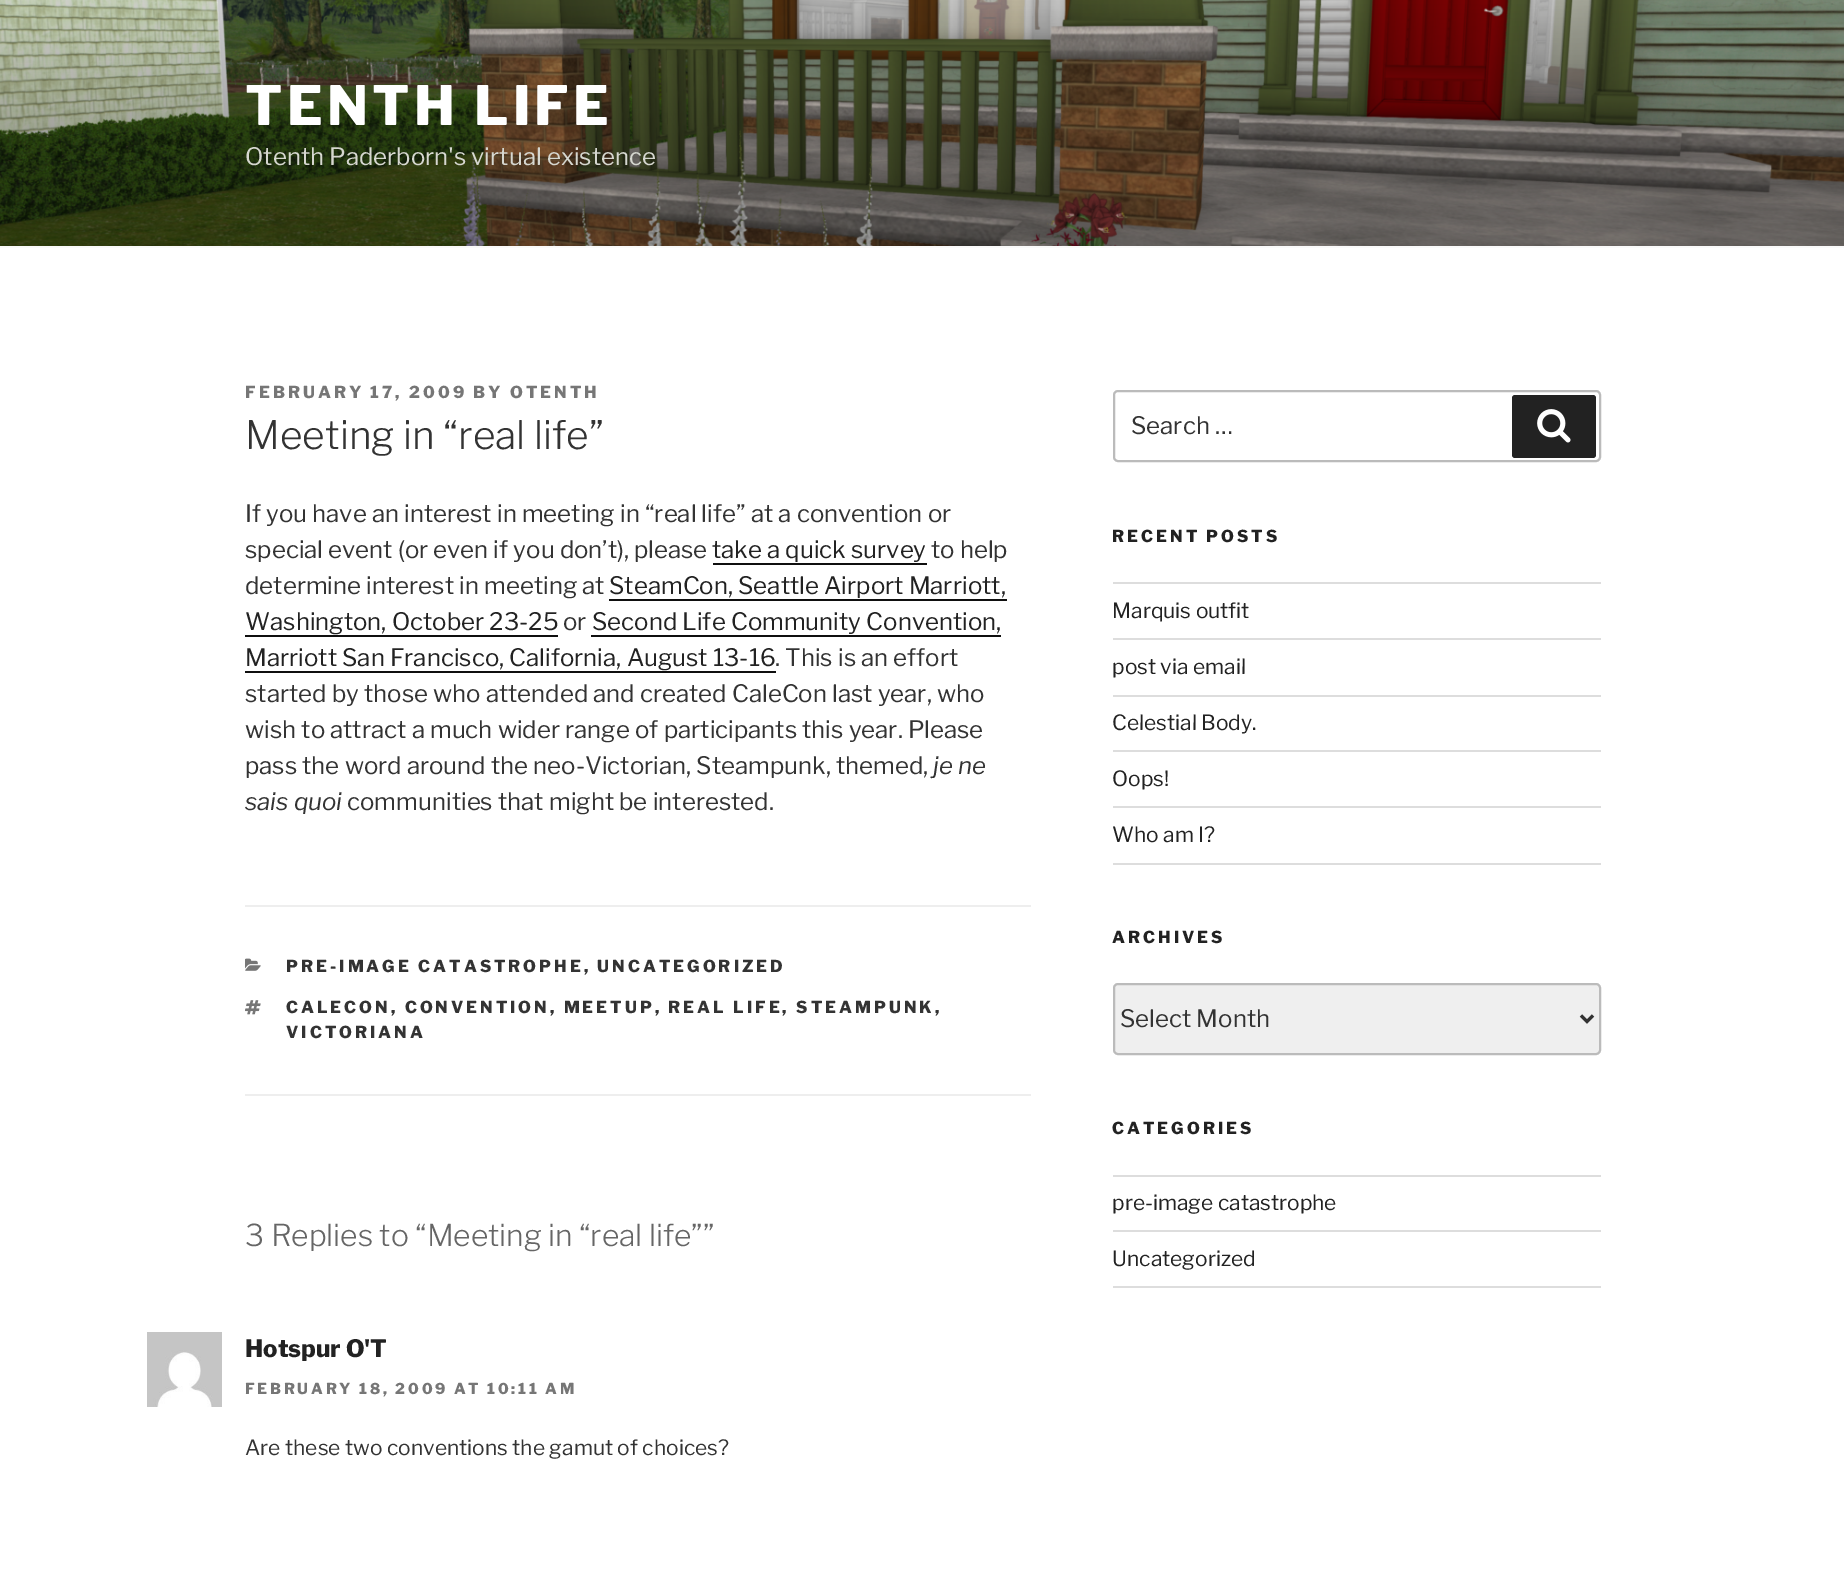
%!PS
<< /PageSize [1844 1578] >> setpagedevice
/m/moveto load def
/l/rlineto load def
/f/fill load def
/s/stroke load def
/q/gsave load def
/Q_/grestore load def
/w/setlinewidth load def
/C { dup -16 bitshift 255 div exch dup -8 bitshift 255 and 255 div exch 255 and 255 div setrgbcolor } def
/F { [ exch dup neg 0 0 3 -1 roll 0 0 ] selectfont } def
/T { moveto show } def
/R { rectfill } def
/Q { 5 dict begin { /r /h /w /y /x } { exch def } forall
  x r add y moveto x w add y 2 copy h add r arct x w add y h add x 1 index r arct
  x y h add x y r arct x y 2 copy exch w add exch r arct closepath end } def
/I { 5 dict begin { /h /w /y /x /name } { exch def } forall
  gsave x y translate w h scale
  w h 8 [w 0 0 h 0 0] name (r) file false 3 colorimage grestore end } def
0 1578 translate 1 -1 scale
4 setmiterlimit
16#FFFFFF C
0 0 1844 1578 R
16#FAFAFA C
0 246 1844 2 R
(1.rgb) 0 0 1844 246 I
/LibreFranklin-Thin 54 F
16#FFFFFF C
245 125 m 4.25 0 (TENTH LIFE) ashow
/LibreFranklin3-Thin 24 F
16#D6D7D0 C
(Otenth Paderborn's virtual existence) 245 165 T
/LibreFranklin-Thin 16.5 F
16#767676 C
245 398 m 3 0 (FEBRUARY 17, 2009 BY OTENTH) ashow
/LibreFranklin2-Thin 39 F
16#333333 C
(Meeting in “real life”) 245 449 T
/LibreFranklin3-Thin 24 F
(If you have an interest in meeting in “real life” at a convention or) 245 522 T
(special event \(or even if you don’t\), please) 245 558 T
16#222222 C
(take a quick survey) 712 558 T
16#0F0F0F C
713 563 214 2 R
16#333333 C
(to help) 931 558 T
(determine interest in meeting at) 245 594 T
16#222222 C
(SteamCon, Seattle Airport Marriott,) 609 594 T
16#0F0F0F C
609 599 398 2 R
16#222222 C
(Washington, October 23-25) 245 630 T
16#0F0F0F C
245 635 313 2 R
16#333333 C
(or) 563 630 T
16#222222 C
(Second Life Community Convention,) 592 630 T
16#0F0F0F C
591 635 410 2 R
16#222222 C
(Marriott San Francisco, California, August 13-16) 245 666 T
16#0F0F0F C
245 671 531 2 R
16#333333 C
(. This is an effort) 775 666 T
(started by those who attended and created CaleCon last year, who) 245 702 T
(wish to attract a much wider range of participants this year. Please) 245 738 T
(pass the word around the neo-Victorian, Steampunk, themed,) 245 774 T
/LibreFranklin-ThinItalic 24 F
(je ne) 933 774 T
(sais quoi) 245 810 T
/LibreFranklin3-Thin 24 F
(communities that might be interested.) 347 810 T
16#EEEEEE C
245 905 786 2 R
245 1094 786 2 R
(2.rgb) 245 958 16 13 I
/LibreFranklin-Thin 16.5 F
16#333333 C
286 972 m 3 0 (PRE-IMAGE CATASTROPHE, UNCATEGORIZED) ashow
(3.rgb) 245 1000 16 15 I
286 1013 m 3 0 (CALECON, CONVENTION, MEETUP, REAL LIFE, STEAMPUNK,) ashow
286 1038 m 3 0 (VICTORIANA) ashow
/LibreFranklin2-Thin 30 F
16#666666 C
(3 Replies to “Meeting in “real life””) 245 1246 T
(4.rgb) 147 1332 75 75 I
/LibreFranklin-Thin 24 F
16#222222 C
(Hotspur O'T) 245 1357 T
/LibreFranklin-Thin 15 F
16#767676 C
245 1394 m 2.75 0 (FEBRUARY 18, 2009 AT 10:11 AM) ashow
/LibreFranklin3-Thin 21 F
16#333333 C
(Are these two conventions the gamut of choices?) 245 1455 T
16#BBBBBB C
2 w
1114 391 486 70 4 Q s
/LibreFranklin3-Thin 24 F
16#333333 C
(Search …) 1131 434 T
16#222222 C
1512 395 84 63 3 Q f
(5.rgb) 1537 409 34 34 I
/LibreFranklin-Thin 16.5 F
1112 542 m 3 0 (RECENT POSTS) ashow
16#DDDDDD C
1113 582 488 2 R
1113 638 488 2 R
/LibreFranklin3-Thin 21 F
16#222222 C
(Marquis outfit) 1112 618 T
16#DDDDDD C
1113 695 488 2 R
16#222222 C
(post via email) 1112 674 T
16#DDDDDD C
1113 750 488 2 R
16#222222 C
(Celestial Body.) 1112 730 T
16#DDDDDD C
1113 806 488 2 R
16#222222 C
(Oops!) 1112 786 T
16#DDDDDD C
1113 863 488 2 R
16#222222 C
(Who am I?) 1112 842 T
/LibreFranklin-Thin 16.5 F
1112 943 m 3 0 (ARCHIVES) ashow
16#EFEFEF C
1114 984 486 70 4 Q q f Q_
16#BBBBBB C
s
16#333333 C
3 w
1581 1015.5 m 6 6 l 6 -6 l s
/LibreFranklin3-Thin 24 F
(Select Month) 1120 1027 T
/LibreFranklin-Thin 16.5 F
16#222222 C
1112 1134 m 3 0 (CATEGORIES) ashow
16#DDDDDD C
1113 1175 488 2 R
1113 1230 488 2 R
/LibreFranklin3-Thin 21 F
16#222222 C
(pre-image catastrophe) 1112 1210 T
16#DDDDDD C
1113 1286 488 2 R
16#222222 C
(Uncategorized) 1112 1266 T
showpage
